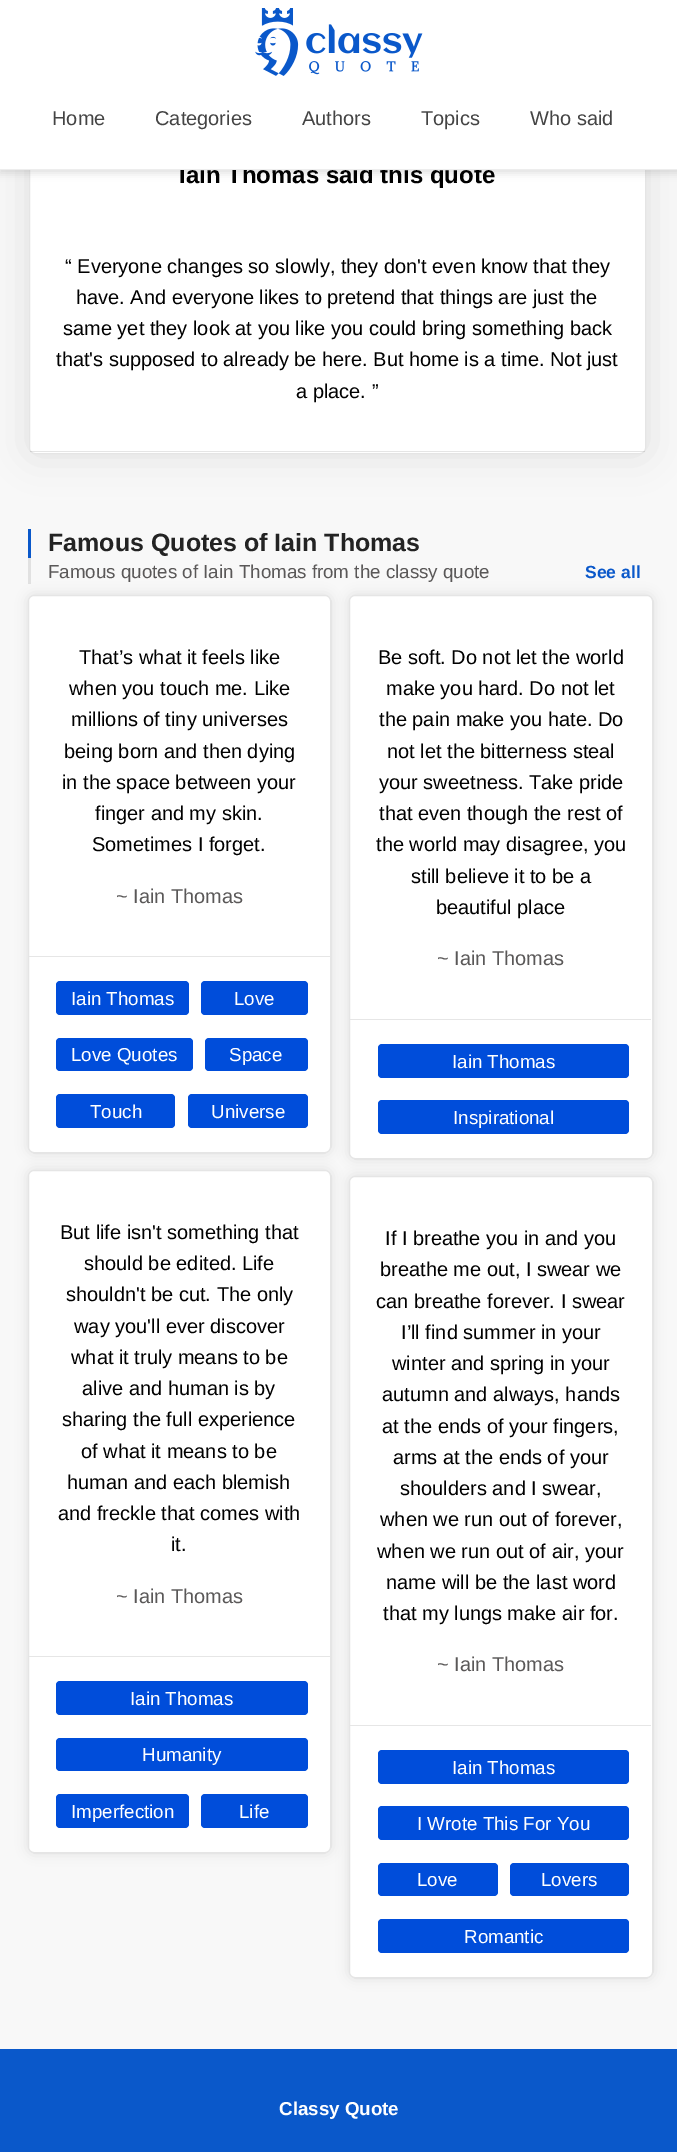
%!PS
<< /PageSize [677 2152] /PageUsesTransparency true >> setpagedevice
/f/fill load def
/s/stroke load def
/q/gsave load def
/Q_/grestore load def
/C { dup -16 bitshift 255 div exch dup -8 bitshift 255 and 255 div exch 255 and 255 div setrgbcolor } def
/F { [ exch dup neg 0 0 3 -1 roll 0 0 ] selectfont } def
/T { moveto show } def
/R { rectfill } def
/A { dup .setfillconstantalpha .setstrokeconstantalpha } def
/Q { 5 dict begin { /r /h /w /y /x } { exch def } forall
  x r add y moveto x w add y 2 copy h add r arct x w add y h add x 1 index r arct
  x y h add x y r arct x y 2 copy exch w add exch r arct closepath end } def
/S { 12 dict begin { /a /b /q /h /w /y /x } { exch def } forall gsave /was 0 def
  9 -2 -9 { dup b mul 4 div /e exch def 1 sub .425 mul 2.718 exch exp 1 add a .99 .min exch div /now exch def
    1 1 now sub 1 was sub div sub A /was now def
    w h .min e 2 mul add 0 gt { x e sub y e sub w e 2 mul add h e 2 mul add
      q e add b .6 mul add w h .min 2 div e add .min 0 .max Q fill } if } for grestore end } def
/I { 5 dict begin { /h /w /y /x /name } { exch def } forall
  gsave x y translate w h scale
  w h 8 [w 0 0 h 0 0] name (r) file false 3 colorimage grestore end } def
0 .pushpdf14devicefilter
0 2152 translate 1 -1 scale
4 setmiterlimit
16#F8F8F8 C
0 0 677 2152 R
16#000000 C
29 144 617 310 6 19 .1 S
16#FFFFFF C
29.5 144.5 616 309 5.5 Q q f Q_
16#E5E5E5 C
s
16#000000 C
0 3 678 170 0 4 .12 S
/LiberationSans-Bold 24 F
(Iain Thomas said this quote) 179 183 T
16#FFFFFF C
0 0 677 169 R
16#EDEDED C
0 169 677 1 R
(1.rgb) 255 8 168 68 I
/LiberationSans-Regular 20 F
16#444444 C
(Home) 52 125 T
(Categories) 155 125 T
(Authors) 302 125 T
(Topics) 421 125 T
(Who said) 530 125 T
0.1 A
16#000000 C
30 451 615 1 R
1 A
(“ Everyone changes so slowly, they don't even know that they) 65 273 T
(have. And everyone likes to pretend that things are just the) 76 304 T
(same yet they look at you like you could bring something back) 63 335 T
(that's supposed to already be here. But home is a time. Not just) 56 366 T
(a place. ”) 296 398 T
16#0A58CA C
28 529 3 29 R
/LiberationSans-Bold 25 F
16#232323 C
(Famous Quotes of Iain Thomas) 48 551 T
16#E1E1E1 C
28 558 3 26 R
/LiberationSans-Regular 18.75 F
16#5A5858 C
(Famous quotes of Iain Thomas from the classy quote) 48 578 T
/LiberationSans-Bold 17.5 F
16#0A58CA C
(See all) 585 578 T
16#000000 C
28 595 303 558 6 6 .1 S
16#FFFFFF C
28 595 303 558 6 Q f
0.1 A
16#000000 C
28.5 595.5 302 557 5.5 Q s
1 A
16#E6E6E6 C
29 956 301 1 R
/LiberationSans-Regular 20 F
16#000000 C
(That’s what it feels like) 79 664 T
(when you touch me. Like) 69 695 T
(millions of tiny universes) 71 726 T
(being born and then dying) 64 758 T
(in the space between your) 62 789 T
(finger and my skin.) 95 820 T
(Sometimes I forget.) 92 851 T
16#5A5858 C
(~ Iain Thomas) 116 903 T
16#004DDA C
56 981 133 34 4 Q f
/LiberationSans-Regular 18.75 F
16#FFFFFF C
(Iain Thomas) 71 1005 T
16#004DDA C
201 981 107 34 4 Q f
16#FFFFFF C
(Love) 234 1005 T
16#004DDA C
56 1038 137 33 4 Q f
16#FFFFFF C
(Love Quotes) 71 1061 T
16#004DDA C
205 1038 103 33 4 Q f
16#FFFFFF C
(Space) 229 1061 T
16#004DDA C
56 1094 119 34 4 Q f
16#FFFFFF C
(Touch) 90 1118 T
16#004DDA C
188 1094 120 34 4 Q f
16#FFFFFF C
(Universe) 211 1118 T
16#000000 C
28 1170 303 683 6 6 .1 S
16#FFFFFF C
28 1170 303 683 6 Q f
0.1 A
16#000000 C
28.5 1170.5 302 682 5.5 Q s
1 A
349 595 304 564 6 6 .1 S
16#FFFFFF C
349 595 304 564 6 Q f
0.1 A
16#000000 C
349.5 595.5 303 563 5.5 Q s
1 A
16#E6E6E6 C
350 1019 301 1 R
/LiberationSans-Regular 20 F
16#000000 C
(Be soft. Do not let the world) 378 664 T
(make you hard. Do not let) 386 695 T
(the pain make you hate. Do) 379 726 T
(not let the bitterness steal) 387 758 T
(your sweetness. Take pride) 379 789 T
(that even though the rest of) 379 820 T
(the world may disagree, you) 376 851 T
(still believe it to be a) 411 883 T
(beautiful place) 436 914 T
16#5A5858 C
(~ Iain Thomas) 437 965 T
16#004DDA C
378 1044 251 34 4 Q f
/LiberationSans-Regular 18.75 F
16#FFFFFF C
(Iain Thomas) 452 1068 T
16#004DDA C
378 1100 251 34 4 Q f
16#FFFFFF C
(Inspirational) 453 1124 T
16#E6E6E6 C
29 1656 301 1 R
/LiberationSans-Regular 20 F
16#000000 C
(But life isn't something that) 60 1239 T
(should be edited. Life) 84 1270 T
(shouldn't be cut. The only) 66 1301 T
(way you'll ever discover) 74 1333 T
(what it truly means to be) 71 1364 T
(alive and human is by) 82 1395 T
(sharing the full experience) 62 1426 T
(of what it means to be) 81 1458 T
(human and each blemish) 67 1489 T
(and freckle that comes with) 58 1520 T
(it.) 171 1551 T
16#5A5858 C
(~ Iain Thomas) 116 1603 T
16#004DDA C
56 1681 252 34 4 Q f
/LiberationSans-Regular 18.75 F
16#FFFFFF C
(Iain Thomas) 130 1705 T
16#004DDA C
56 1738 252 33 4 Q f
16#FFFFFF C
(Humanity) 142 1761 T
16#004DDA C
56 1794 133 34 4 Q f
16#FFFFFF C
(Imperfection) 71 1818 T
16#004DDA C
201 1794 107 34 4 Q f
16#FFFFFF C
(Life) 239 1818 T
16#000000 C
349 1176 304 802 6 6 .1 S
16#FFFFFF C
349 1176 304 802 6 Q f
0.1 A
16#000000 C
349.5 1176.5 303 801 5.5 Q s
1 A
16#E6E6E6 C
350 1725 301 1 R
/LiberationSans-Regular 20 F
16#000000 C
(If I breathe you in and you) 385 1245 T
(breathe me out, I swear we) 380 1276 T
(can breathe forever. I swear) 376 1308 T
(I’ll find summer in your) 401 1339 T
(winter and spring in your) 392 1370 T
(autumn and always, hands) 382 1401 T
(at the ends of your fingers,) 382 1433 T
(arms at the ends of your) 393 1464 T
(shoulders and I swear,) 400 1495 T
(when we run out of forever,) 380 1526 T
(when we run out of air, your) 377 1558 T
(name will be the last word) 386 1589 T
(that my lungs make air for.) 383 1620 T
16#5A5858 C
(~ Iain Thomas) 437 1671 T
16#004DDA C
378 1750 251 34 4 Q f
/LiberationSans-Regular 18.75 F
16#FFFFFF C
(Iain Thomas) 452 1774 T
16#004DDA C
378 1806 251 34 4 Q f
16#FFFFFF C
(I Wrote This For You) 417 1830 T
16#004DDA C
378 1863 120 33 4 Q f
16#FFFFFF C
(Love) 417 1886 T
16#004DDA C
510 1863 119 33 4 Q f
16#FFFFFF C
(Lovers) 541 1886 T
16#004DDA C
378 1919 251 34 4 Q f
16#FFFFFF C
(Romantic) 464 1943 T
16#0A58CA C
0 2049 677 103 R
/LiberationSans-Bold 18.75 F
16#FFFFFF C
(Classy Quote) 279 2115 T
.poppdf14devicefilter showpage
